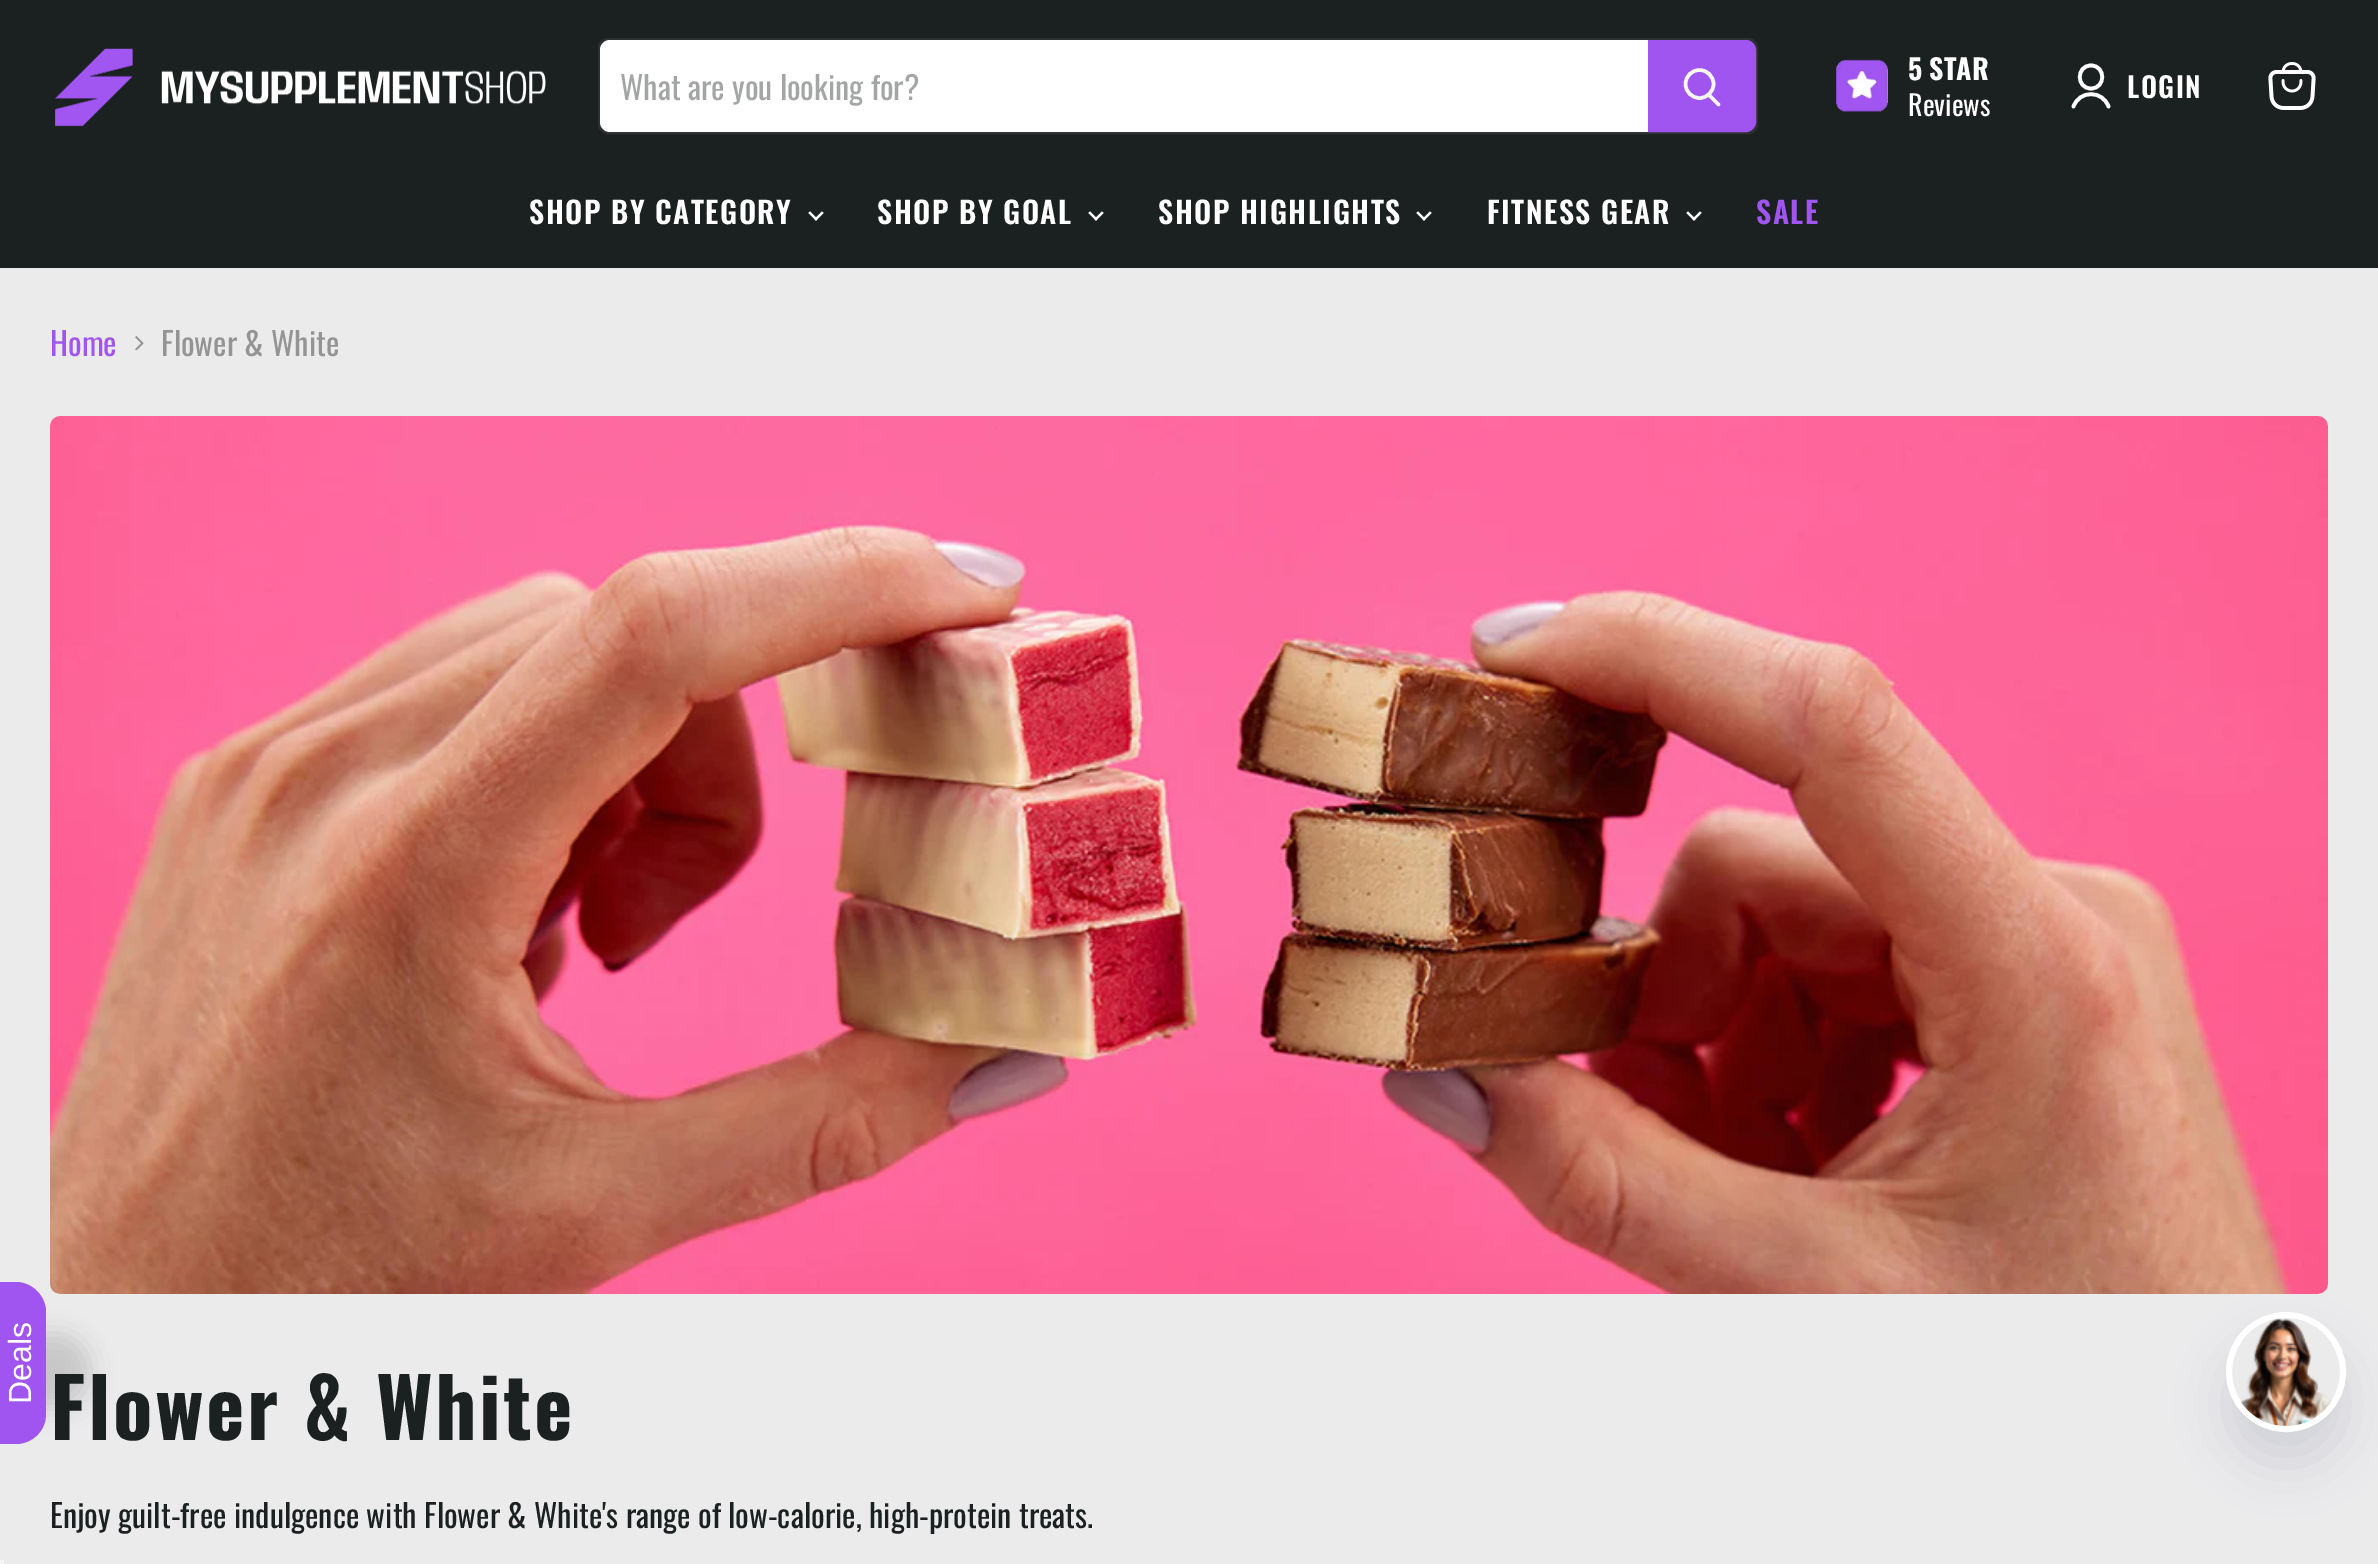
%!PS
<< /PageSize [2378 1564] /PageUsesTransparency true >> setpagedevice
/m/moveto load def
/l/rlineto load def
/c/rcurveto load def
/z/closepath load def
/f/fill load def
/s/stroke load def
/q/gsave load def
/Q_/grestore load def
/w/setlinewidth load def
/C { dup -16 bitshift 255 div exch dup -8 bitshift 255 and 255 div exch 255 and 255 div setrgbcolor } def
/F { [ exch dup neg 0 0 3 -1 roll 0 0 ] selectfont } def
/T { moveto show } def
/R { rectfill } def
/A { dup .setfillconstantalpha .setstrokeconstantalpha } def
/O { newpath 0 360 arc closepath } def
/Q { 5 dict begin { /r /h /w /y /x } { exch def } forall
  x r add y moveto x w add y 2 copy h add r arct x w add y h add x 1 index r arct
  x y h add x y r arct x y 2 copy exch w add exch r arct closepath end } def
/S { 12 dict begin { /a /b /q /h /w /y /x } { exch def } forall gsave /was 0 def
  9 -2 -9 { dup b mul 4 div /e exch def 1 sub .425 mul 2.718 exch exp 1 add a .99 .min exch div /now exch def
    1 1 now sub 1 was sub div sub A /was now def
    w h .min e 2 mul add 0 gt { x e sub y e sub w e 2 mul add h e 2 mul add
      q e add b .6 mul add w h .min 2 div e add .min 0 .max Q fill } if } for grestore end } def
/I { 5 dict begin { /h /w /y /x /name } { exch def } forall
  gsave x y translate w h scale
  w h 8 [w 0 0 h 0 0] name (r) file false 3 colorimage grestore end } def
0 .pushpdf14devicefilter
0 1564 translate 1 -1 scale
4 setmiterlimit
16#EBEBEC C
0 0 2378 1564 R
16#1B2021 C
0 0 2378 268 R
(1.rgb) 55 48 491 79 I
0.2 A
16#767676 C
2 w
599 39 1158 94 9 Q s
1 A
16#FFFFFF C
610 40 m 1038 0 l 0 92 l -1038 0 l -5.5 0 -10 -4.5 -10 -10 c 0 -72 l 0 -5.5 4.5 -10 10 -10 c z f
/Oswald-Regular 32 F
16#A4A6A6 C
(What are you looking for?) 620 100 T
16#A155F0 C
1649 41 m 97 0 l 5 0 9 4 9 9 c 0 72 l 0 5 -4 9 -9 9 c -97 0 l z q f Q_
s
16#F6F6F6 C
3.5 w
1 setlinecap
1718.5 104.5 m -9.5 -9.5 l s
0 setlinecap
1699.5 84 14 O s
(2.rgb) 1836 59 52 53 I
/Oswald-Bold 28 F
16#FFFFFF C
(5 STAR) 1908 80 T
/Oswald-Regular 28 F
(Reviews) 1908 116 T
3.7 w
1 setlinecap
1 setlinejoin
2091 88.5 m 15 0 15 -23 0 -23 c -15 0 -15 23 0 23 c z 2108.5 106.5 m -6 -16.5 -29 -16.5 -35 0 c s
/Oswald-SemiBold 28 F
2127 98 m 1.5 0 (LOGIN) ashow
(3.rgb) 2268 62 48 48 I
/Oswald-SemiBold 30 F
529 224 m 1.5 0 (SHOP BY CATEGORY) ashow
(4.rgb) 808 211 16 10 I
877 224 m 1.5 0 (SHOP BY GOAL) ashow
(4.rgb) 1088 211 16 10 I
1158 224 m 1.5 0 (SHOP HIGHLIGHTS) ashow
(4.rgb) 1416 211 16 10 I
1487 224 m 1.5 0 (FITNESS GEAR) ashow
(4.rgb) 1686 211 16 10 I
16#A155F0 C
1756 224 m 1.5 0 (SALE) ashow
16#000000 C
-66 1334 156 74 30 12 .15 S
16#A155F0 C
-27 1414 m 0 -102 l 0 -16 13 -30 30 -30 c 13 0 l 16 0 30 14 30 30 c 0 102 l 0 17 -14 30 -30 30 c -13 0 l -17 0 -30 -13 -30 -30 c z f
/LiberationSans-Regular 32 F
16#FFFFFF C
q 31 1404 translate -90 rotate 0 0 m (Deals) show Q_
/Oswald-Regular 32 F
16#A155F0 C
(Home) 50 356 T
(5.rgb) 135 336 9 15 I
16#949494 C
(Flower & White) 161 356 T
(6.rgb) 50 416 2278 878 I
/Oswald-Bold 81.5 F
16#1B2021 C
50 1440 m 2.5 0 (Flower & White) ashow
/Oswald-Regular 32 F
(Enjoy guilt-free indulgence with Flower & White's range of low-calorie, high-protein treats.) 50 1528 T
q
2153 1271 m 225 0 l 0 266 l -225 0 l z 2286 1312 m 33 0 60 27 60 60 c 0 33 -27 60 -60 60 c -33 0 -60 -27 -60 -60 c 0 -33 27 -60 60 -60 c z eoclip newpath
16#545F6F C
2226 1344 120 120 60 24 .16 S
Q_
16#FFFFFF C
6 w
0 setlinecap
0 setlinejoin
2286 1372 57 O s
(7.rgb) 2241 1318 91 108 I
16#F5F5F5 C
0 1560 4 4 R
.poppdf14devicefilter showpage
